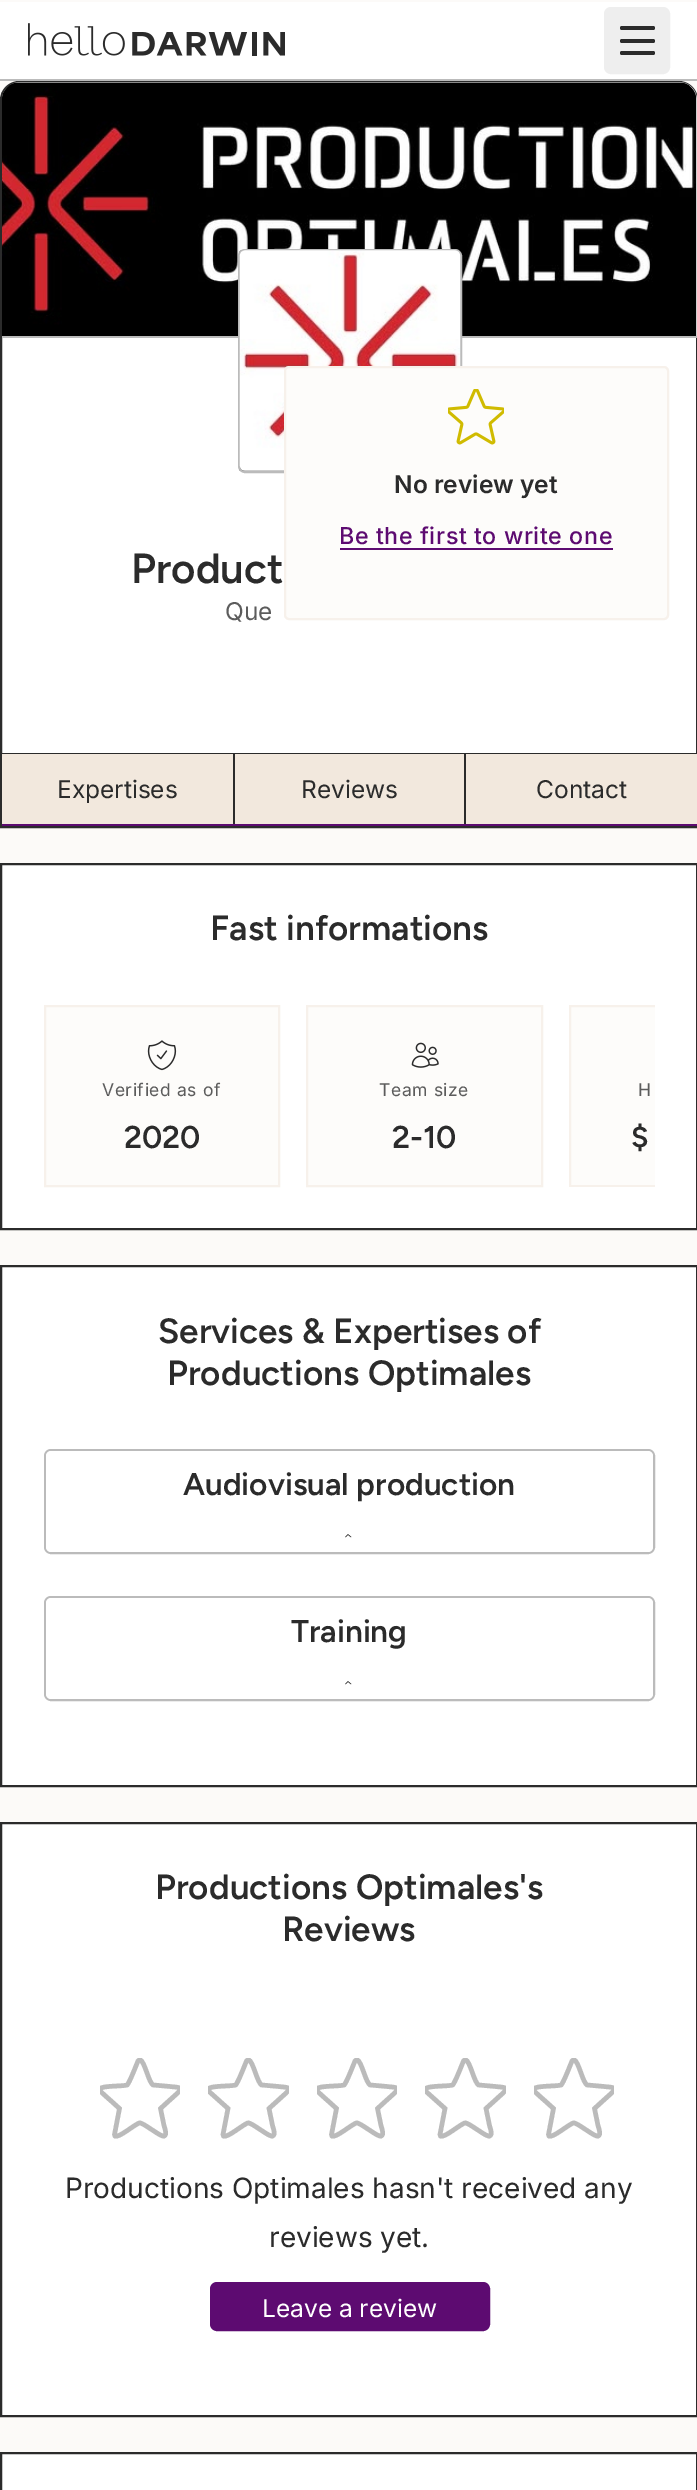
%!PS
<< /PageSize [697 2490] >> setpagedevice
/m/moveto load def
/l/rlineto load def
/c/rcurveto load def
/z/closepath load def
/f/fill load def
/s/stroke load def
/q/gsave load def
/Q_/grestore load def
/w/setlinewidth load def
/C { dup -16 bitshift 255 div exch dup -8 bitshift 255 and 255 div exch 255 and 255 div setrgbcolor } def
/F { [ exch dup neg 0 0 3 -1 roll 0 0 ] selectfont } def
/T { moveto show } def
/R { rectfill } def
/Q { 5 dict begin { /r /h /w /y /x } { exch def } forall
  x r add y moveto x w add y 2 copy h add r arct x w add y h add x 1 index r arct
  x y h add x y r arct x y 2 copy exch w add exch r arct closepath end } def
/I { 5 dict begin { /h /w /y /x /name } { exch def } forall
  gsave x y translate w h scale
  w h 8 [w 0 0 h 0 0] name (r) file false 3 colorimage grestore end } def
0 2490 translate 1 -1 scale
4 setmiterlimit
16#FCFAF8 C
0 0 697 2490 R
16#FFFFFF C
0 2 697 77 R
16#BBBBBB C
0 79 697 2 R
(1.rgb) 28 23 257 33 I
16#EEEEEE C
605 8 64 65 6 Q q f Q_
2 w
s
16#2B2B2B C
620 26 35 4 2 Q f
620 39 35 4 2 Q f
620 51 35 4 2 Q f
16#FFFFFF C
19 82 m 660 0 l 10 0 18 8 18 18 c 0 727 l -696 0 l 0 -727 l 0 -10 8 -18 18 -18 c z q f Q_
16#2B2B2B C
s
16#EEEEEE C
20 82 m 659 0 l 10 0 18 8 18 18 c 0 236 l -695 0 l 0 -236 l 0 -10 8 -18 18 -18 c z f
(2.rgb) 2 82 695 254 I
16#BBBBBB C
2 336 695 2 R
16#2B2B2B C
239 250 222 222 6 Q q f Q_
16#BBBBBB C
s
(4.rgb) 239 250 222 221 I
16#FDFCFA C
285 367 383 252 4 Q q f Q_
16#F7F1EB C
s
(3.rgb) 448 389 56 56 I
/Inter-SemiBold 24.5 F
16#2B2B2B C
(No review yet) 394 493 T
/Inter-Medium 23.25 F
16#5D0B71 C
339 544 m .6 0 (Be the first to write one) ashow
340 548 273 2 R
/Figtree-SemiBold 42 F
16#2B2B2B C
(Product) 131 583 T
/Inter-Regular 24.5 F
16#5C5C5C C
(Que) 225 620 T
16#2B2B2B C
2 753 695 1 R
16#F2E8DD C
2 754 231 70 R
16#2B2B2B C
233 754 2 72 R
16#5D0B71 C
2 824 233 2 R
16#2B2B2B C
(Expertises) 57 798 T
16#F2E8DD C
235 754 229 70 R
16#2B2B2B C
464 754 2 72 R
16#5D0B71 C
235 824 462 2 R
16#2B2B2B C
(Reviews) 301 798 T
16#F2E8DD C
466 754 231 70 R
16#2B2B2B C
(Contact) 536 798 T
16#FFFFFF C
1 864 m 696 0 l 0 365 l -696 0 l z q f Q_
16#2B2B2B C
s
/Figtree-SemiBold 35 F
(Fast informations) 210 940 T
16#FDFCFA C
45 1006 m 234 0 l 0 180 l -234 0 l z q f Q_
16#F7F1EB C
s
(5.rgb) 147 1040 30 31 I
/Inter-Regular 17.5 F
16#5C5C5C C
102 1096 m .6 0 (Verified as of) ashow
/Figtree-SemiBold 31.5 F
16#2B2B2B C
(2020) 124 1148 T
16#FDFCFA C
307 1006 m 235 0 l 0 180 l -235 0 l z q f Q_
16#F7F1EB C
s
(6.rgb) 411 1042 28 26 I
/Inter-Regular 17.5 F
16#5C5C5C C
379 1096 m .6 0 (Team size) ashow
/Figtree-SemiBold 31.5 F
16#2B2B2B C
(2-10) 392 1148 T
16#FDFCFA C
571 1007 84 178 R
q
44 1005 611 182 rectclip
16#F7F1EB C
570 1006 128 180 rectstroke
Q_
/Inter-Regular 17.5 F
16#5C5C5C C
638 1096 m .6 0 (H) ashow
/Figtree-SemiBold 31.5 F
16#2B2B2B C
($) 631 1148 T
16#FFFFFF C
1 1266 m 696 0 l 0 520 l -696 0 l z q f Q_
16#2B2B2B C
s
/Figtree-SemiBold 35 F
(Services & Expertises of) 158 1343 T
(Productions Optimales) 167 1385 T
16#BBBBBB C
45 1450 609 103 6 Q s
16#FFFFFF C
46 1451 607 101 5 Q f
/Figtree-SemiBold 31.5 F
16#2B2B2B C
(Audiovisual production) 183 1495 T
.5 w
1 setlinecap
345.5 1537 m 2.5 -2.5 l 3 2.5 l s
16#BBBBBB C
2 w
0 setlinecap
45 1597 609 103 6 Q s
16#FFFFFF C
46 1598 607 101 5 Q f
16#2B2B2B C
(Training) 291 1642 T
.5 w
1 setlinecap
345.5 1684 m 2.5 -2.5 l 3 2.5 l s
16#FFFFFF C
1 1823 m 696 0 l 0 593 l -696 0 l z q f Q_
16#2B2B2B C
2 w
0 setlinecap
s
/Figtree-SemiBold 35 F
(Productions Optimales's) 155 1899 T
(Reviews) 282 1941 T
q
100 2058 80 81 rectclip
16#BBBBBB C
4.5 w
138 2061 m .5 -.5 1 -1 2 -1 c 4.5 0 9 24.5 13.5 25 c 16.5 1.5 l 7.5 1 15 0 6.5 7.5 c -16 14.5 l 3.5 17 l .5 2 3.5 9.5 0 10.5 c -3 1.5 -20.5 -13.5 -24.5 -13 c -4.5 1 -21 15.5 -24.5 13 c -.5 -1.5 l 5 -26 l -19.5 -17.5 l 0 -2 l 1 -3.5 22.5 -2.5 27 -4 c 2 -1 9.5 -20.5 11 -24 c z s
Q_
q
208 2058 81 81 rectclip
16#BBBBBB C
4.5 w
246.5 2061 m .5 -.5 1 -1 2 -1 c 4.5 0 9 24.5 13.5 25 c 16.5 1.5 l 7.5 1 15 0 6.5 7.5 c -16 14.5 l 3.5 17 l .5 2 3.5 9.5 0 10.5 c -3 1.5 -20.5 -13.5 -24.5 -13 c -4.5 1 -21 15.5 -24.5 13 c -.5 -1.5 l 5 -26 l -19.5 -17.5 l 0 -2 l 1 -3.5 22.5 -2.5 27 -4 c 2 -1 9.5 -20.5 11 -24 c z s
Q_
q
317 2058 80 81 rectclip
16#BBBBBB C
4.5 w
355 2061 m .5 -.5 1 -1 2 -1 c 4.5 0 9 24.5 13.5 25 c 16.5 1.5 l 7.5 1 15 0 6.5 7.5 c -16 14.5 l 3.5 17 l .5 2 3.5 9.5 0 10.5 c -3 1.5 -20.5 -13.5 -24.5 -13 c -4.5 1 -21 15.5 -24.5 13 c -.5 -1.5 l 5 -26 l -19.5 -17.5 l 0 -2 l 1 -3.5 22.5 -2.5 27 -4 c 2 -1 9.5 -20.5 11 -24 c z s
Q_
q
425 2058 81 81 rectclip
16#BBBBBB C
4.5 w
463.5 2061 m .5 -.5 1 -1 2 -1 c 4.5 0 9 24.5 13.5 25 c 16.5 1.5 l 7.5 1 15 0 6.5 7.5 c -16 14.5 l 3.5 17 l .5 2 3.5 9.5 0 10.5 c -3 1.5 -20.5 -13.5 -24.5 -13 c -4.5 1 -21 15.5 -24.5 13 c -.5 -1.5 l 5 -26 l -19.5 -17.5 l 0 -2 l 1 -3.5 22.5 -2.5 27 -4 c 2 -1 9.5 -20.5 11 -24 c z s
Q_
q
534 2058 80 81 rectclip
16#BBBBBB C
4.5 w
572 2061 m .5 -.5 1 -1 2 -1 c 4.5 0 9 24.5 13.5 25 c 16.5 1.5 l 7.5 1 15 0 6.5 7.5 c -16 14.5 l 3.5 17 l .5 2 3.5 9.5 0 10.5 c -3 1.5 -20.5 -13.5 -24.5 -13 c -4.5 1 -21 15.5 -24.5 13 c -.5 -1.5 l 5 -26 l -19.5 -17.5 l 0 -2 l 1 -3.5 22.5 -2.5 27 -4 c 2 -1 9.5 -20.5 11 -24 c z s
Q_
/Inter-Regular 28 F
(Productions Optimales hasn't received any) 65 2198 T
(reviews yet.) 269 2247 T
16#5D0B71 C
211 2283 278 47 6 Q q f Q_
s
/Inter-Regular 24.5 F
16#FFFFFF C
(Leave a review) 262 2317 T
1 2453 m 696 0 l 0 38 l -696 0 l z q f Q_
16#2B2B2B C
s
showpage
